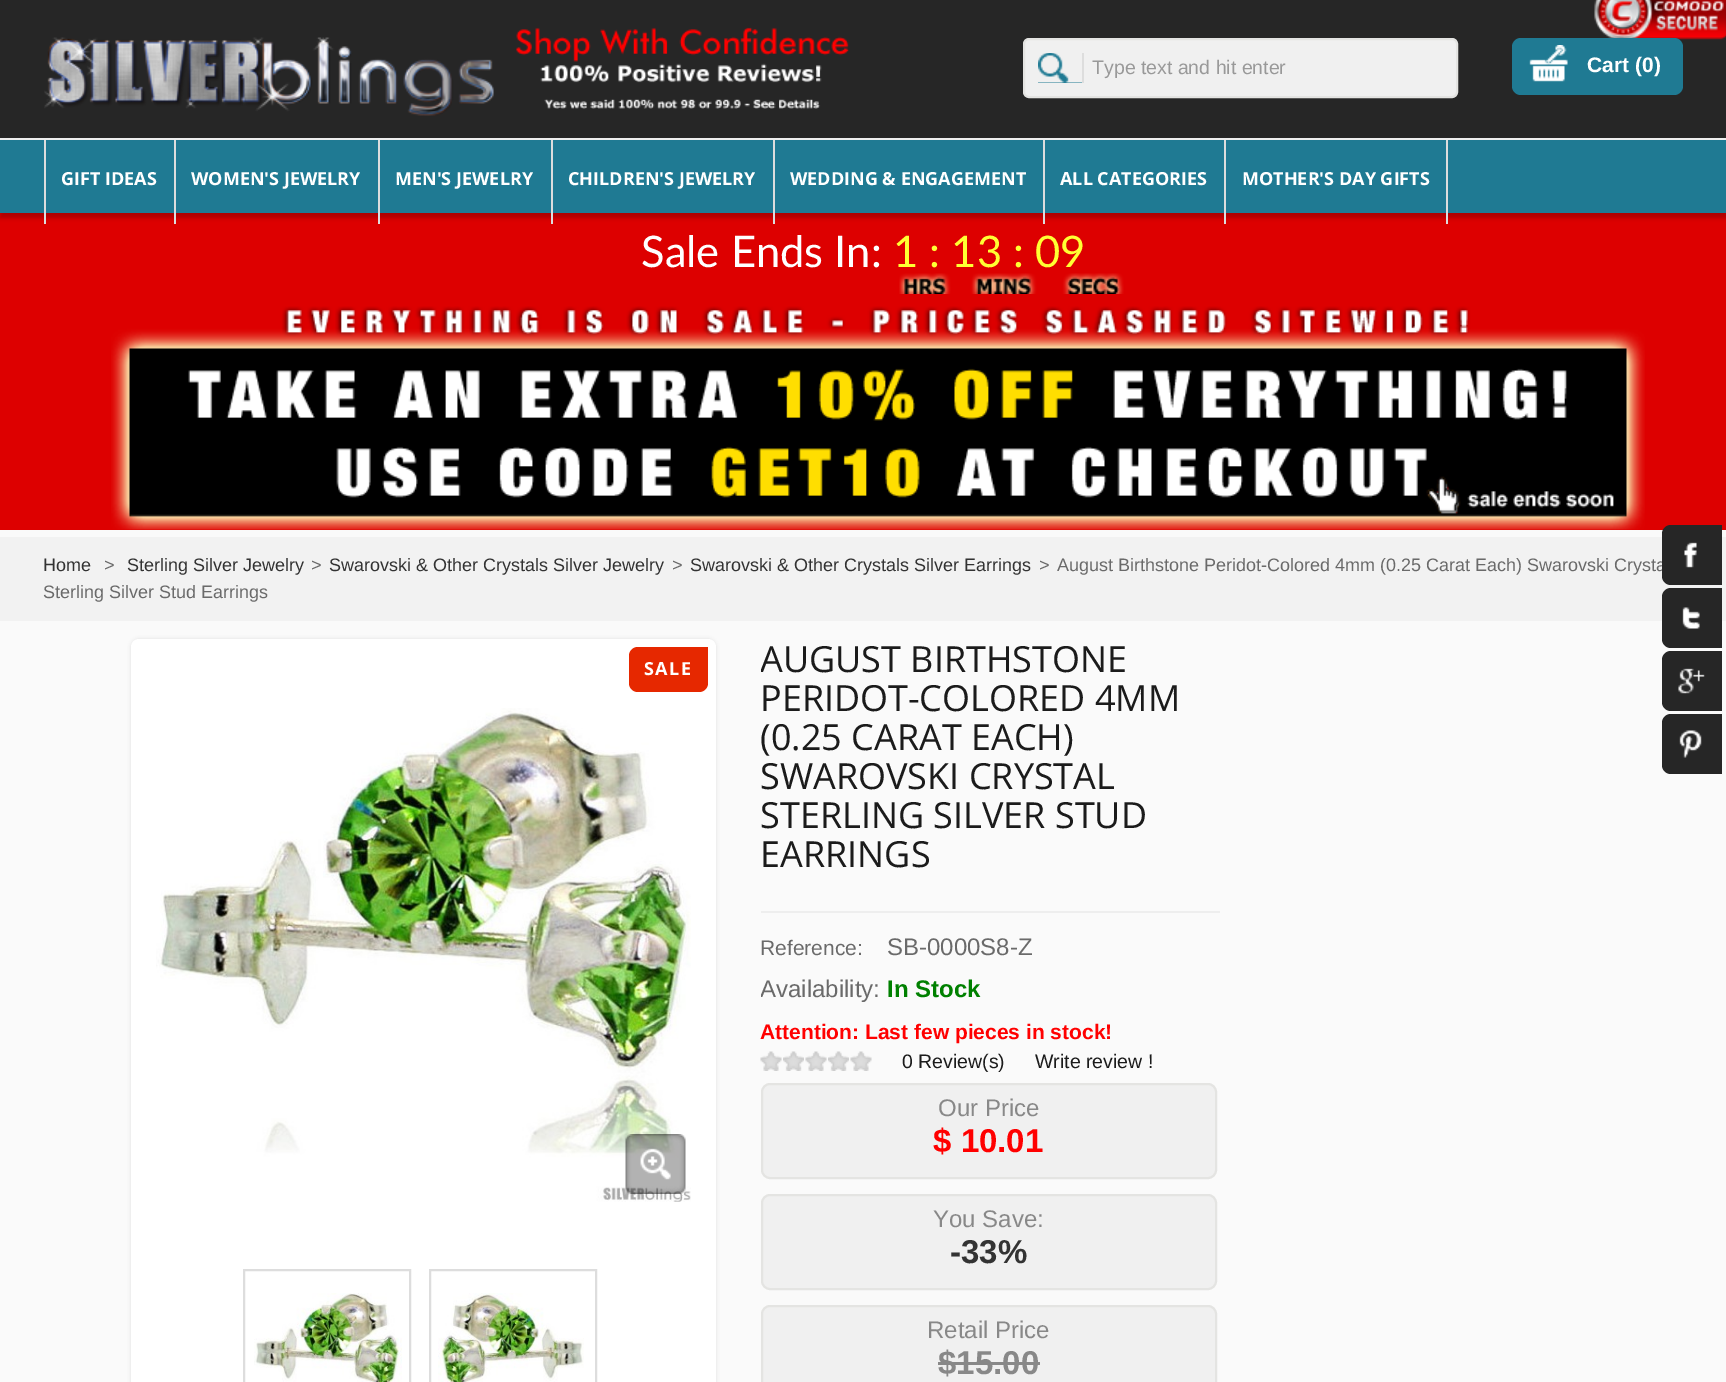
%!PS
<< /PageSize [1726 1382] /PageUsesTransparency true >> setpagedevice
/m/moveto load def
/l/rlineto load def
/c/rcurveto load def
/z/closepath load def
/f/fill load def
/s/stroke load def
/q/gsave load def
/Q_/grestore load def
/w/setlinewidth load def
/C { dup -16 bitshift 255 div exch dup -8 bitshift 255 and 255 div exch 255 and 255 div setrgbcolor } def
/F { [ exch dup neg 0 0 3 -1 roll 0 0 ] selectfont } def
/T { moveto show } def
/R { rectfill } def
/A { dup .setfillconstantalpha .setstrokeconstantalpha } def
/Q { 5 dict begin { /r /h /w /y /x } { exch def } forall
  x r add y moveto x w add y 2 copy h add r arct x w add y h add x 1 index r arct
  x y h add x y r arct x y 2 copy exch w add exch r arct closepath end } def
/S { 12 dict begin { /a /b /q /h /w /y /x } { exch def } forall gsave /was 0 def
  9 -2 -9 { dup b mul 4 div /e exch def 1 sub .425 mul 2.718 exch exp 1 add a .99 .min exch div /now exch def
    1 1 now sub 1 was sub div sub A /was now def
    w h .min e 2 mul add 0 gt { x e sub y e sub w e 2 mul add h e 2 mul add
      q e add b .6 mul add w h .min 2 div e add .min 0 .max Q fill } if } for grestore end } def
/I { 5 dict begin { /h /w /y /x /name } { exch def } forall
  gsave x y translate w h scale
  w h 8 [w 0 0 h 0 0] name (r) file false 3 colorimage grestore end } def
0 .pushpdf14devicefilter
0 1382 translate 1 -1 scale
4 setmiterlimit
16#FAFAFA C
0 0 1726 1382 R
16#DD0000 C
0 213 1726 317 R
16#000000 C
0 -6 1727 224 0 2 .2 S
16#262626 C
0 0 1726 138 R
16#EEEEEE C
0 138 1726 2 R
(1.rgb) 1594 0 132 40 I
(2.rgb) 44 37 450 79 I
(3.rgb) 516 27 333 82 I
16#F0F0F0 C
1024 39 433 58 5 Q q f Q_
16#E4E4E2 C
2 w
s
16#1F7A93 C
1038 53 44 30 R
(4.rgb) 1038 53 44 30 I
16#DDDDDD C
1082 53 2 30 R
/LiberationSans-Regular 19.5 F
16#999999 C
(Type text and hit enter) 1092 74 T
16#1F7A93 C
1512 38 171 57 9 Q f
(5.rgb) 1529 45 39 37 I
/LiberationSans-Bold 21 F
16#FFFFFF C
(Cart \(0\)) 1587 72 T
16#1F7A93 C
0 140 1726 73 R
16#DDDDDD C
174 140 2 84 R
44 140 2 84 R
/OpenSans-Bold 18 F
16#FFFFFF C
(GIFT IDEAS) 61 185 T
16#DDDDDD C
378 140 2 84 R
16#FFFFFF C
(WOMEN'S JEWELRY) 191 185 T
16#DDDDDD C
551 140 2 84 R
16#FFFFFF C
(MEN'S JEWELRY) 395 185 T
16#DDDDDD C
773 140 2 84 R
16#FFFFFF C
(CHILDREN'S JEWELRY) 568 185 T
16#DDDDDD C
1043 140 2 84 R
16#FFFFFF C
(WEDDING & ENGAGEMENT) 790 185 T
16#DDDDDD C
1224 140 2 84 R
16#FFFFFF C
(ALL CATEGORIES) 1060 185 T
16#DDDDDD C
1446 140 2 84 R
16#FFFFFF C
(MOTHER'S DAY GIFTS) 1242 185 T
(6.rgb) 899 273 225 21 I
/Lato-Regular 43.5 F
(Sale Ends In:) 641 267 T
16#FFFF33 C
(1 : 13 : 09) 893 267 T
(7.rgb) 111 306 1534 224 I
16#F2F2F2 C
0 537 1726 84 R
/LiberationSans-Regular 18 F
16#333333 C
(Home) 43 571 T
16#6A6A6A C
(>) 104 571 T
16#333333 C
(Sterling Silver Jewelry) 127 571 T
16#6A6A6A C
(>) 311 571 T
16#333333 C
(Swarovski & Other Crystals Silver Jewelry) 329 571 T
16#6A6A6A C
(>) 672 571 T
16#333333 C
(Swarovski & Other Crystals Silver Earrings) 690 571 T
16#6A6A6A C
(>) 1039 571 T
(August Birthstone Peridot-Colored 4mm \(0.25 Carat Each\) Swarovski Crysta) 1057 571 T
(Sterling Silver Stud Earrings) 43 598 T
16#DDDDDD C
131 639 585 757 8 2 1 S
16#FFFFFF C
131 639 585 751 8 Q f
16#E62800 C
638 647 m 70 0 l 0 36 l 0 5 -4 9 -9 9 c -61 0 l -5 0 -9 -4 -9 -9 c 0 -27 l 0 -5 4 -9 9 -9 c z f
/OpenSans-Bold 18 F
16#FFFFFF C
644 675 m 1.5 0 (SALE) ashow
(8.rgb) 156 708 535 494 I
(9.rgb) 625 1134 61 60 I
16#DDDDDD C
244 1270 166 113 rectstroke
(10.rgb) 254 1293 148 89 I
430 1270 166 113 rectstroke
(11.rgb) 438 1293 146 89 I
16#EEEEEE C
761 911 459 2 R
q
761 639 459 272 rectclip
/OpenSans-Regular 36 F
16#1B1B1B C
(AUGUST BIRTHSTONE) 760 672 T
Q_
/OpenSans-Regular 36 F
16#1B1B1B C
(PERIDOT-COLORED 4MM) 760 711 T
(\(0.25 CARAT EACH\)) 760 750 T
(SWAROVSKI CRYSTAL) 760 789 T
(STERLING SILVER STUD) 760 828 T
(EARRINGS) 760 867 T
/LiberationSans-Regular 21 F
16#6A6A6A C
(Reference:) 760 955 T
/LiberationSans-Regular 24 F
(SB-0000S8-Z) 887 955 T
q
761 977 459 27 rectclip
(Availability:) 760 997 T
Q_
/LiberationSans-Bold 24 F
16#008000 C
(In Stock) 887 997 T
/LiberationSans-Bold 21 F
16#FF0000 C
(Attention: Last few pieces in stock!) 760 1039 T
(12.rgb) 760 1051 22 20 I
(13.rgb) 783 1051 21 20 I
(12.rgb) 805 1051 22 20 I
(13.rgb) 828 1051 21 20 I
(12.rgb) 850 1051 22 20 I
/LiberationSans-Regular 19.5 F
16#1B1B1B C
(0 Review\(s\)) 902 1068 T
(Write review !) 1035 1068 T
16#F0F0F0 C
762 1084 454 94 8 Q q f Q_
16#E4E4E2 C
s
/LiberationSans-Regular 24 F
16#888888 C
(Our Price) 938 1116 T
/LiberationSans-Bold 33 F
16#FF0000 C
($ 10.01) 933 1152 T
16#F0F0F0 C
762 1195 454 94 8 Q q f Q_
16#E4E4E2 C
s
/LiberationSans-Regular 24 F
16#888888 C
(You Save:) 933 1227 T
/LiberationSans-Bold 33 F
16#333333 C
(-33%) 950 1263 T
16#F0F0F0 C
762 1306 454 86 8 Q q f Q_
16#E4E4E2 C
s
/LiberationSans-Regular 24 F
16#888888 C
(Retail Price) 927 1338 T
/LiberationSans-Bold 33 F
($15.00) 938 1374 T
938 1362 102 3 R
16#262626 C
1671 525 m 51 0 l 0 60 l -51 0 l -5 0 -9 -4 -9 -9 c 0 -42 l 0 -5 4 -9 9 -9 c z f
(14.rgb) 1684 542 13 26 I
1671 588 m 51 0 l 0 60 l -51 0 l -5 0 -9 -4 -9 -9 c 0 -42 l 0 -5 4 -9 9 -9 c z f
(15.rgb) 1682 607 18 22 I
1671 651 m 51 0 l 0 60 l -51 0 l -5 0 -9 -4 -9 -9 c 0 -42 l 0 -5 4 -9 9 -9 c z f
(16.rgb) 1678 668 27 26 I
1671 714 m 51 0 l 0 60 l -51 0 l -5 0 -9 -4 -9 -9 c 0 -42 l 0 -5 4 -9 9 -9 c z f
(17.rgb) 1679 730 23 28 I
.poppdf14devicefilter showpage
